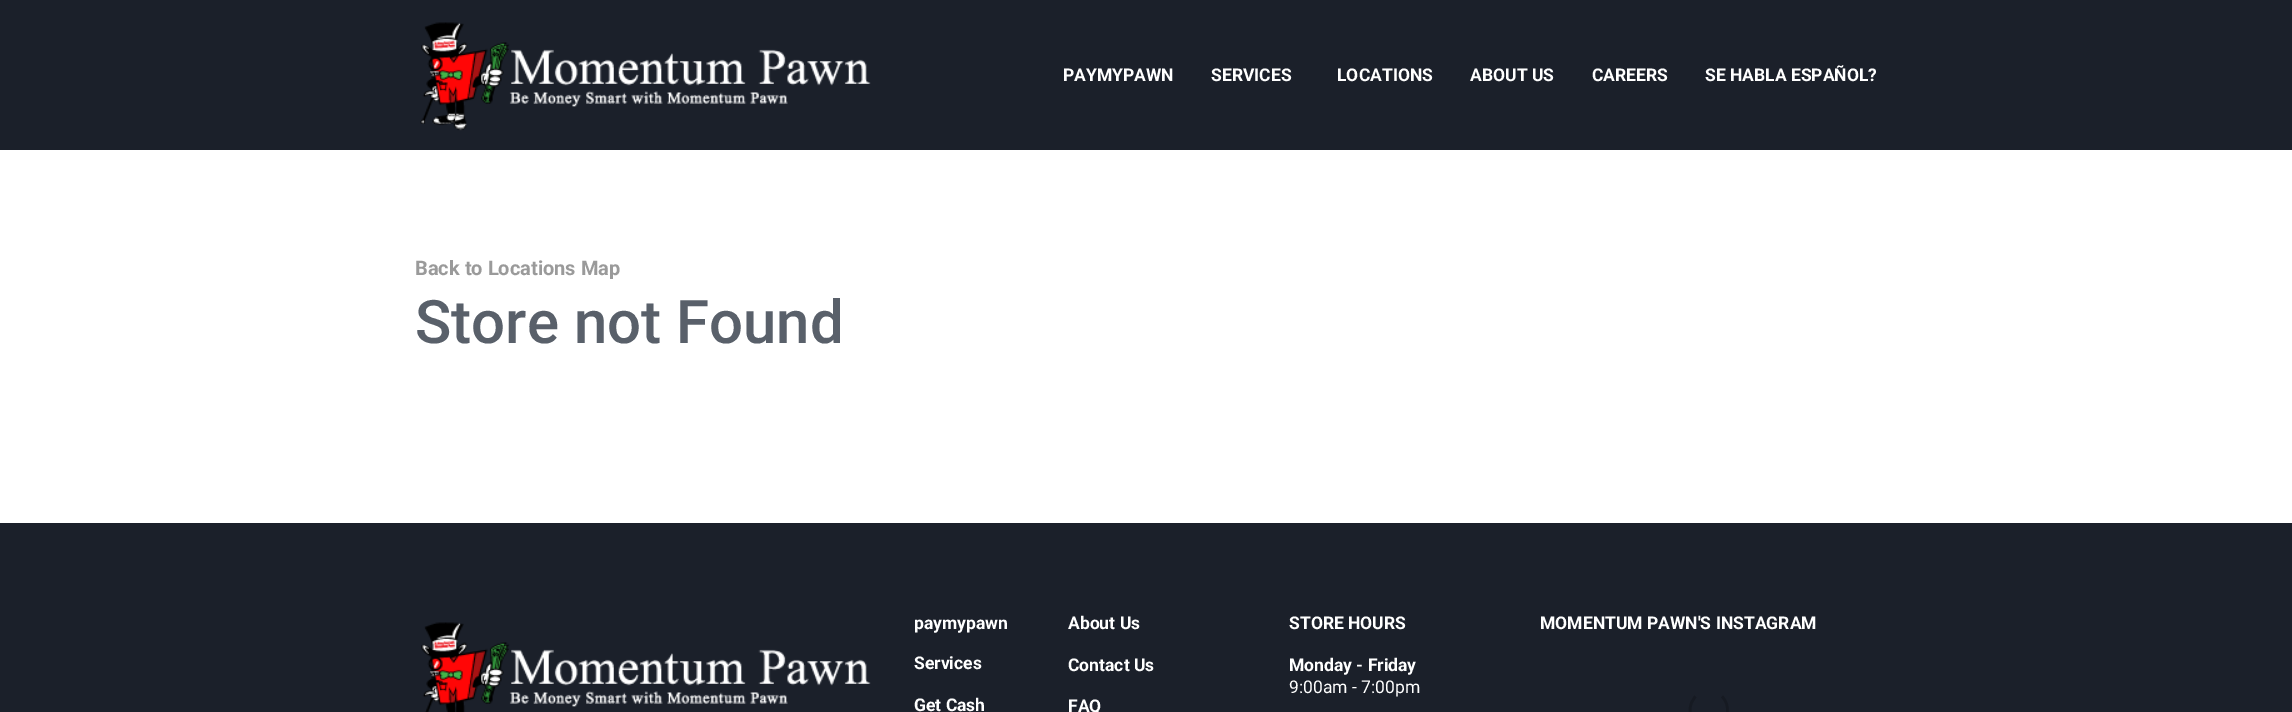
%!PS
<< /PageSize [2292 712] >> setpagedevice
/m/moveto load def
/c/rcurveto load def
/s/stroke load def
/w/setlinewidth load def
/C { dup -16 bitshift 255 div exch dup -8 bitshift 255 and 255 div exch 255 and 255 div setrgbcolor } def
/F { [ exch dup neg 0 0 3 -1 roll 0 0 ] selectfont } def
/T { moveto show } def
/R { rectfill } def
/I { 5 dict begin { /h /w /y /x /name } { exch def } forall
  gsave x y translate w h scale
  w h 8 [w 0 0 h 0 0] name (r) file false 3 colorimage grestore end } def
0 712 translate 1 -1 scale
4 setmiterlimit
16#FFFFFF C
0 0 2292 712 R
16#1B202A C
0 0 2292 150 R
(1.rgb) 420 22 451 109 I
/Roboto-Bold 17.5 F
16#FFFFFF C
(PAYMYPAWN) 1063 81 T
(SERVICES) 1211 81 T
(LOCATIONS) 1337 81 T
(ABOUT US) 1470 81 T
(CAREERS) 1592 81 T
(SE HABLA ESPAÑOL?) 1705 81 T
/Roboto-Bold 20 F
16#9A9A9A C
(Back to Locations Map) 415 275 T
/Roboto-Medium 60 F
16#59606A C
(Store not Found) 415 343 T
16#1B202A C
0 523 2292 189 R
(2.rgb) 421 622 450 90 I
/Roboto-Bold 17.5 F
16#FFFFFF C
(paymypawn) 914 629 T
(Services) 914 669 T
(Get Cash) 914 711 T
(About Us) 1068 629 T
(Contact Us) 1068 671 T
(FAQ) 1068 712 T
(STORE HOURS) 1289 629 T
(Monday - Friday) 1289 671 T
/Roboto-Regular 17.5 F
(9:00am - 7:00pm) 1289 693 T
/Roboto-Bold 17.5 F
(MOMENTUM PAWN'S INSTAGRAM) 1540 629 T
16#161A22 C
2.5 w
1722 696.5 m 4.5 4.5 6.5 11 5 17 c -4.5 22 -37 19 -37 -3.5 c 0 -5 2 -10 5.5 -13.5 c s
showpage
